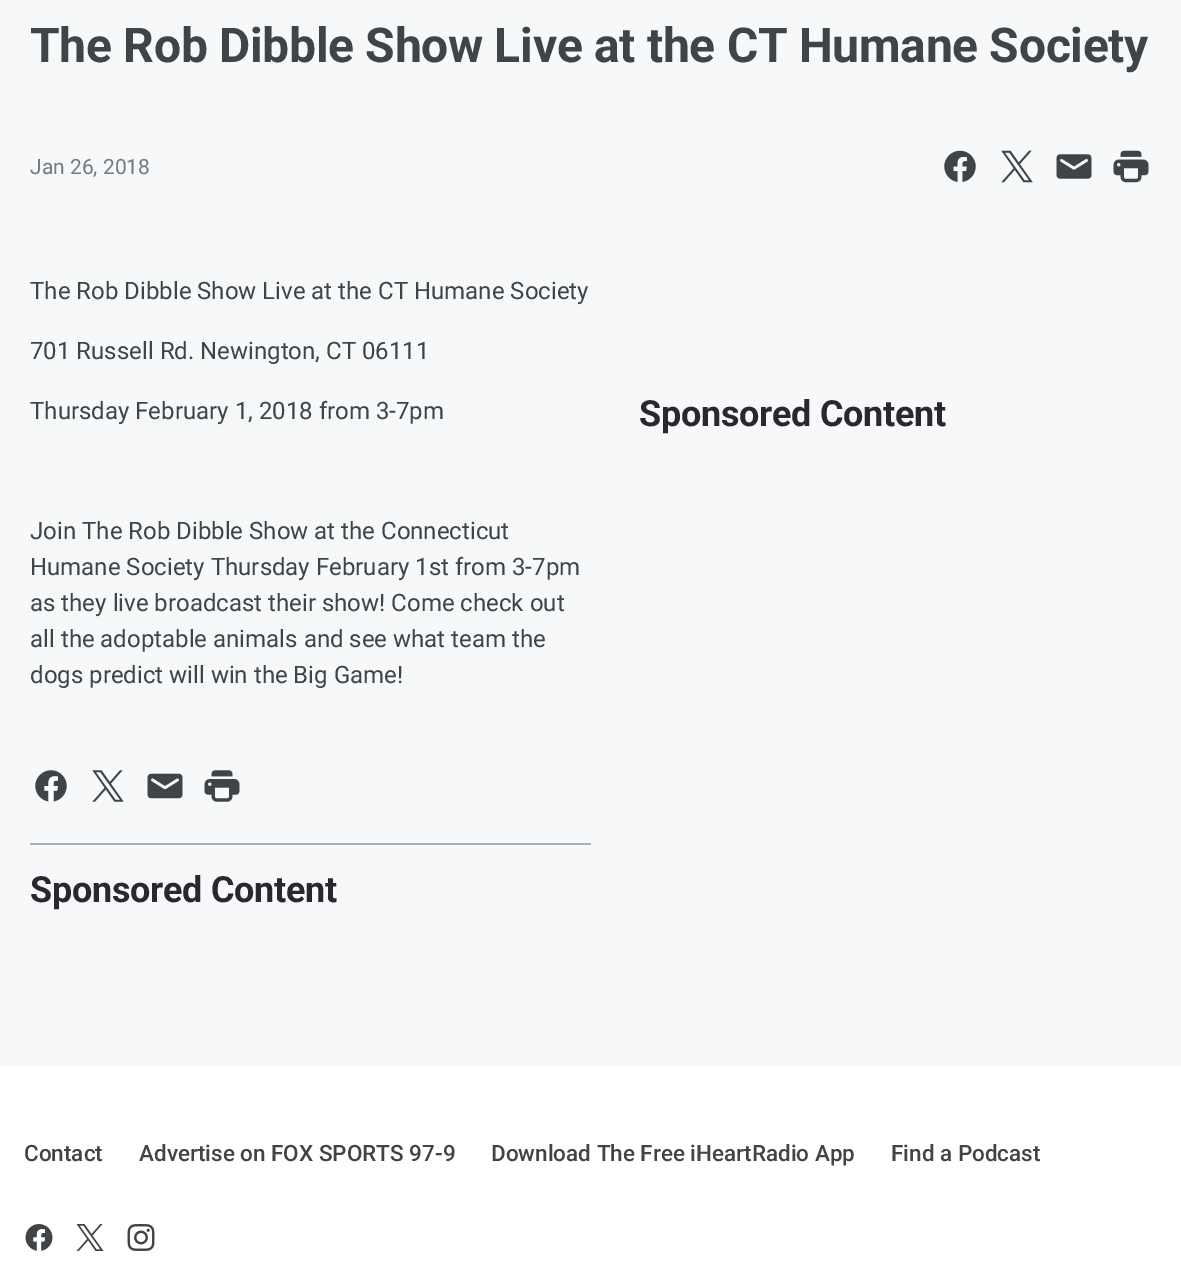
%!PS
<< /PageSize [1181 1281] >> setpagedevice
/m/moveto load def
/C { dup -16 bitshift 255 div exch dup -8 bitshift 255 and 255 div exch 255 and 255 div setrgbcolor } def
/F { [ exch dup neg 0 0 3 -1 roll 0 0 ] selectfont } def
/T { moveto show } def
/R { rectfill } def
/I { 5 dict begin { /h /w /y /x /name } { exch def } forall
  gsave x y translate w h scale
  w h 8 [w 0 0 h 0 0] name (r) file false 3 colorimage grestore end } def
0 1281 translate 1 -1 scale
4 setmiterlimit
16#F6F8F9 C
0 0 1181 1281 R
/Roboto-Bold 48 F
16#3F4447 C
30 62 m -.3 0 (The Rob Dibble Show Live at the CT Humane Society) ashow
/Roboto-Regular 21 F
16#767A7C C
(Jan 26, 2018) 30 174 T
(1.rgb) 944 150 32 32 I
(2.rgb) 1001 150 32 33 I
(3.rgb) 1056 154 36 25 I
(4.rgb) 1113 150 36 33 I
/Roboto-Regular 24 F
16#3F4447 C
(The Rob Dibble Show Live at the CT Humane Society) 30 299 T
(701 Russell Rd. Newington, CT 06111) 30 359 T
(Thursday February 1, 2018 from 3-7pm) 30 419 T
(Join The Rob Dibble Show at the Connecticut) 30 539 T
(Humane Society Thursday February 1st from 3-7pm) 30 575 T
(as they live broadcast their show! Come check out) 30 611 T
(all the adoptable animals and see what team the) 30 647 T
(dogs predict will win the Big Game!) 30 683 T
(5.rgb) 35 770 32 32 I
(6.rgb) 92 770 32 32 I
(7.rgb) 147 773 36 26 I
(8.rgb) 204 770 36 32 I
16#A9AFB2 C
30 843 561 2 R
/Roboto-Bold 36 F
16#27292D C
30 902 m -.3 0 (Sponsored Content) ashow
639 426 m -.3 0 (Sponsored Content) ashow
16#FFFFFF C
0 1067 1181 214 R
/Roboto-Medium 22.5 F
16#3F4447 C
(Contact) 24 1161 T
(Advertise on FOX SPORTS 97-9) 139 1161 T
(Download The Free iHeartRadio App) 491 1161 T
(Find a Podcast) 891 1161 T
(9.rgb) 25 1224 28 27 I
(10.rgb) 76 1224 28 27 I
(11.rgb) 127 1224 28 27 I
showpage
